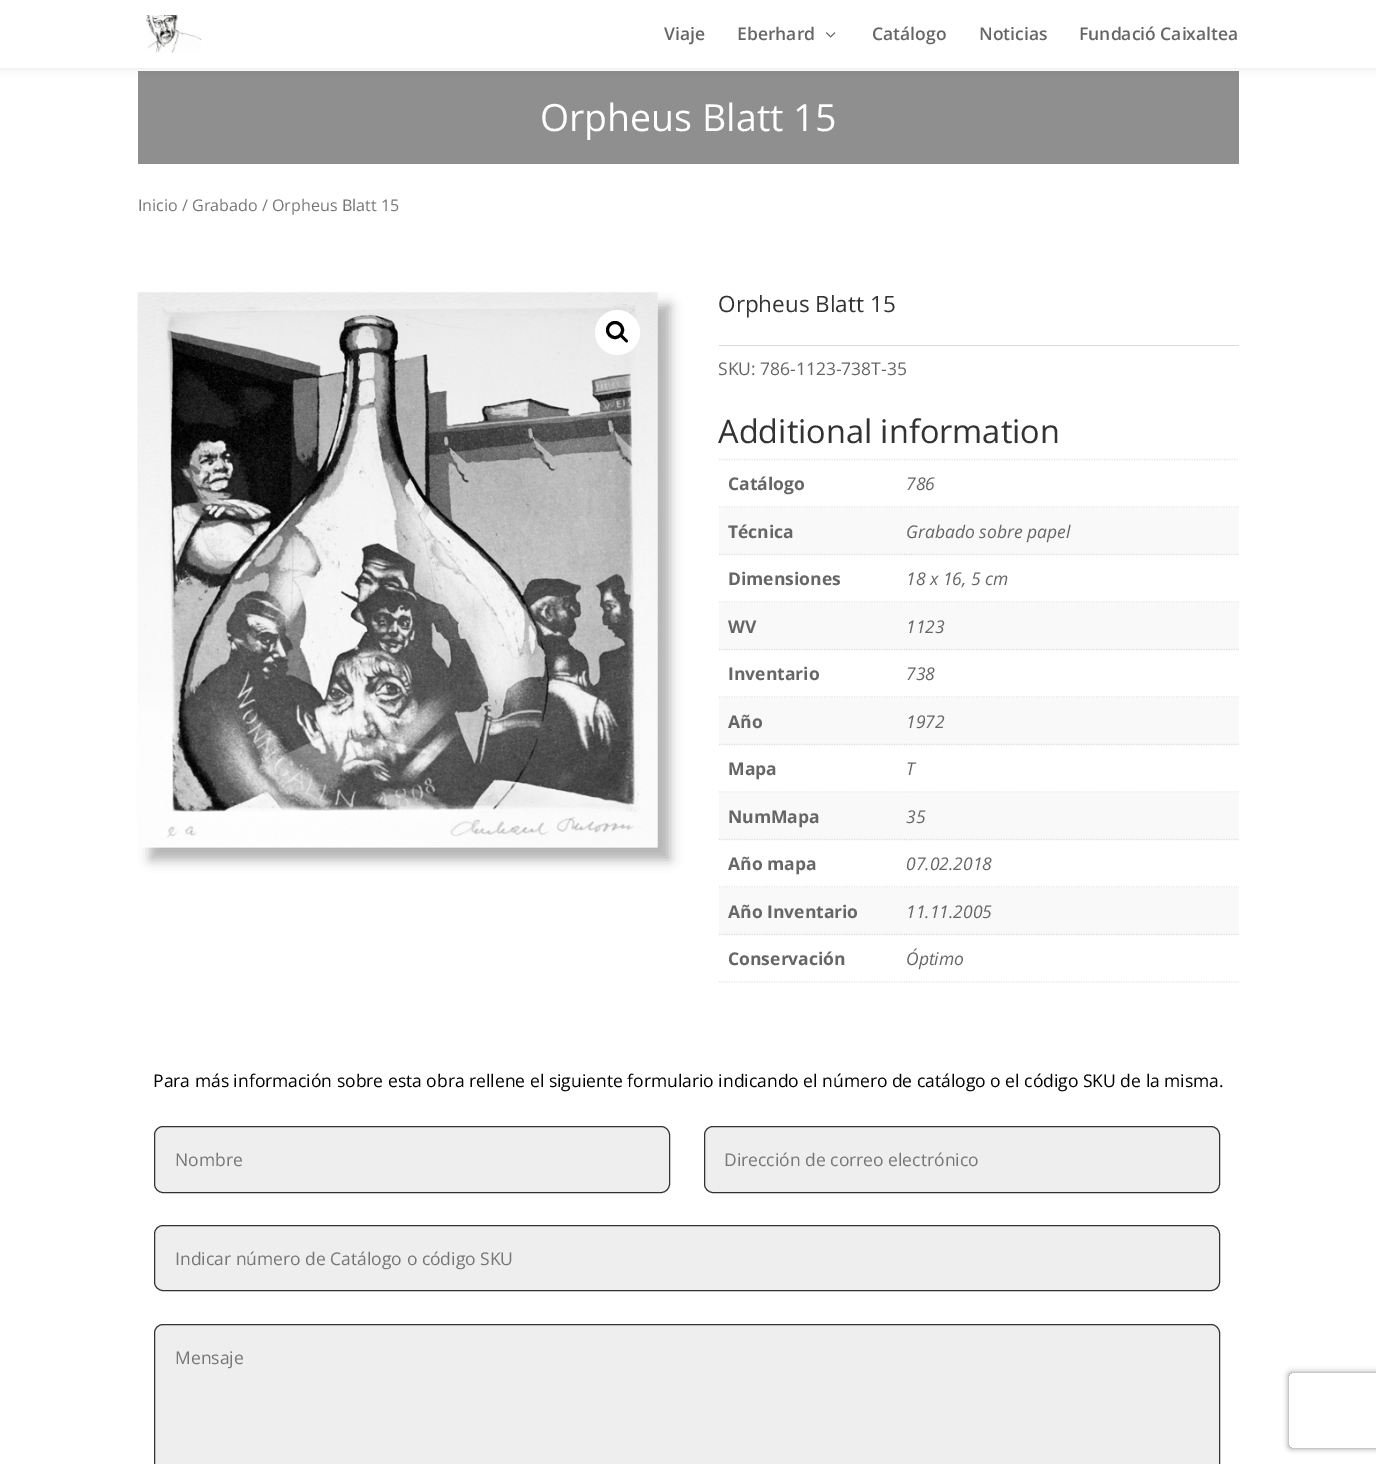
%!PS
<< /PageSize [1376 1464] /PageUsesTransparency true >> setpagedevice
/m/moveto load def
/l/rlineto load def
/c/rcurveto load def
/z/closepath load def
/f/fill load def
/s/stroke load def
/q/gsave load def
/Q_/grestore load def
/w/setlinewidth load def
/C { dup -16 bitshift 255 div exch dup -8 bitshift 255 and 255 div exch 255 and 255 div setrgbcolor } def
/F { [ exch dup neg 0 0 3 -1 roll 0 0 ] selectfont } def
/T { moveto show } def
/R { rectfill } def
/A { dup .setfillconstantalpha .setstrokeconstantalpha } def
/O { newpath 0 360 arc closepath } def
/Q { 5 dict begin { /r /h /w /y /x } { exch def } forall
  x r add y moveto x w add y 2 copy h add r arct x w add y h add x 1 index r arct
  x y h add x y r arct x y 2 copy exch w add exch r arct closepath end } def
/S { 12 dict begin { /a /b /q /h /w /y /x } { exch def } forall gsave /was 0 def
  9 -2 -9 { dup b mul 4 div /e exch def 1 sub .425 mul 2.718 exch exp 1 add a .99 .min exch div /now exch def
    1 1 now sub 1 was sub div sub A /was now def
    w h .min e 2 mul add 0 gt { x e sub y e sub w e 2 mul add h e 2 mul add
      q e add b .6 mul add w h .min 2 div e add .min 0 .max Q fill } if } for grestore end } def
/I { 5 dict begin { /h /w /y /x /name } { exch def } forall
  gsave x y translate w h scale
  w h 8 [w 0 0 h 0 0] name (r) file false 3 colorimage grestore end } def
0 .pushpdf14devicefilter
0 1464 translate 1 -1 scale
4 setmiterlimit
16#FFFFFF C
0 0 1376 1464 R
16#8F8F8F C
138 71 1101 93 R
16#000000 C
0 0 1376 68 0 4.5 .1 S
16#FFFFFF C
0 0 1376 68 R
(1.rgb) 146 15 56 38 I
/OpenSans-SemiBold 17.5 F
16#666666 C
(Viaje) 664 40 T
(Eberhard) 737 40 T
(2.rgb) 826 32 10 6 I
(Catálogo) 872 40 T
(Noticias) 979 40 T
(Fundació Caixaltea) 1079 40 T
/OpenSans-Regular 37.5 F
16#FFFFFF C
(Orpheus Blatt 15) 540 131 T
/OpenSans-Regular 16.1 F
16#767676 C
(Inicio / Grabado / Orpheus Blatt 15) 138 211 T
16#000000 C
150 305 520 555 0 6 .3 S
(3.rgb) 137 292 521 556 I
16#FFFFFF C
617.5 332.5 22.5 O f
16#000000 C
3 w
615 330 7.5 O s
620.5 335 m 1.5 -1.5 3.5 2 4.5 2.5 c .5 1 4 3 2.5 4.5 c -1.5 1.5 -3.5 -2 -4.5 -2.5 c -.5 -1 -4 -3 -2.5 -4.5 c z f
/OpenSans-Regular 22.5 F
16#333333 C
(Orpheus Blatt 15) 718 312 T
16#DADADA C
719 345 520 1 R
/OpenSans-Regular 17.5 F
16#666666 C
(SKU: 786-1123-738T-35) 718 375 T
/OpenSans-Regular 32.5 F
16#333333 C
(Additional information) 718 443 T
16#E6E6E6 C
1.2 w
[1.25 1.25] 0 setdash
719 459.5 m 520 0 l s
719 507 m 187 0 l s
/OpenSans-Bold 17.5 F
16#666666 C
(Catálogo) 728 490 T
16#E6E6E6 C
906 507 m 333 0 l s
/OpenSans-Italic 17.5 F
16#666666 C
(786) 906 490 T
16#F9F9F9 C
719 508 520 47 R
16#E0E0E0 C
719 554.5 m 187 0 l s
/OpenSans-Bold 17.5 F
16#666666 C
(Técnica) 728 538 T
16#E0E0E0 C
906 554.5 m 333 0 l s
/OpenSans-Italic 17.5 F
16#666666 C
(Grabado sobre papel) 906 538 T
16#E6E6E6 C
719 602 m 187 0 l s
/OpenSans-Bold 17.5 F
16#666666 C
(Dimensiones) 728 585 T
16#E6E6E6 C
906 602 m 333 0 l s
/OpenSans-Italic 17.5 F
16#666666 C
(18 x 16, 5 cm) 906 585 T
16#F9F9F9 C
719 603 520 47 R
16#E0E0E0 C
719 649.5 m 187 0 l s
/OpenSans-Bold 17.5 F
16#666666 C
(WV) 728 633 T
16#E0E0E0 C
906 649.5 m 333 0 l s
/OpenSans-Italic 17.5 F
16#666666 C
(1123) 906 633 T
16#E6E6E6 C
719 697 m 187 0 l s
/OpenSans-Bold 17.5 F
16#666666 C
(Inventario) 728 680 T
16#E6E6E6 C
906 697 m 333 0 l s
/OpenSans-Italic 17.5 F
16#666666 C
(738) 906 680 T
16#F9F9F9 C
719 698 520 47 R
16#E0E0E0 C
719 744.5 m 187 0 l s
/OpenSans-Bold 17.5 F
16#666666 C
(Año) 728 728 T
16#E0E0E0 C
906 744.5 m 333 0 l s
/OpenSans-Italic 17.5 F
16#666666 C
(1972) 906 728 T
16#E6E6E6 C
719 792 m 187 0 l s
/OpenSans-Bold 17.5 F
16#666666 C
(Mapa) 728 775 T
16#E6E6E6 C
906 792 m 333 0 l s
/OpenSans-Italic 17.5 F
16#666666 C
(T) 906 775 T
16#F9F9F9 C
719 793 520 47 R
16#E0E0E0 C
719 839.5 m 187 0 l s
/OpenSans-Bold 17.5 F
16#666666 C
(NumMapa) 728 823 T
16#E0E0E0 C
906 839.5 m 333 0 l s
/OpenSans-Italic 17.5 F
16#666666 C
(35) 906 823 T
16#E6E6E6 C
719 887 m 187 0 l s
/OpenSans-Bold 17.5 F
16#666666 C
(Año mapa) 728 870 T
16#E6E6E6 C
906 887 m 333 0 l s
/OpenSans-Italic 17.5 F
16#666666 C
(07.02.2018) 906 870 T
16#F9F9F9 C
719 888 520 47 R
16#E0E0E0 C
719 934.5 m 187 0 l s
/OpenSans-Bold 17.5 F
16#666666 C
(Año Inventario) 728 918 T
16#E0E0E0 C
906 934.5 m 333 0 l s
/OpenSans-Italic 17.5 F
16#666666 C
(11.11.2005) 906 918 T
16#E6E6E6 C
719 982 m 187 0 l s
/OpenSans-Bold 17.5 F
16#666666 C
(Conservación) 728 965 T
16#E6E6E6 C
906 982 m 333 0 l s
/OpenSans-Italic 17.5 F
16#666666 C
(Óptimo) 906 965 T
/OpenSans-Regular 17.5 F
16#000000 C
(Para más información sobre esta obra rellene el siguiente formulario indicando el número de catálogo o el código SKU de la misma.) 153 1087 T
16#EEEEEE C
154.5 1126.5 515 66 8.5 Q q f Q_
16#333333 C
1 w
[] 0 setdash
s
16#767676 C
(Nombre) 175 1166 T
16#EEEEEE C
704.5 1126.5 515 66 8.5 Q q f Q_
16#333333 C
s
16#767676 C
(Dirección de correo electrónico) 724 1166 T
16#EEEEEE C
154.5 1225.5 1065 65 8.5 Q q f Q_
16#333333 C
s
16#767676 C
(Indicar número de Catálogo o código SKU) 175 1265 T
16#EEEEEE C
154.5 1324.5 1065 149 8.5 Q q f Q_
16#333333 C
s
16#767676 C
(Mensaje) 175 1364 T
q
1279 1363 m 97 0 l 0 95 l -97 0 l z 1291.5 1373 m 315 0 l 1.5 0 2.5 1 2.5 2.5 c 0 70 l 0 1.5 -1 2.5 -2.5 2.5 c -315 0 l -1.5 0 -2.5 -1 -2.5 -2.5 c 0 -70 l 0 -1.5 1 -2.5 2.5 -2.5 c z eoclip newpath
16#808080 C
1289 1373 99 75 2.5 3 1 S
Q_
.poppdf14devicefilter showpage
